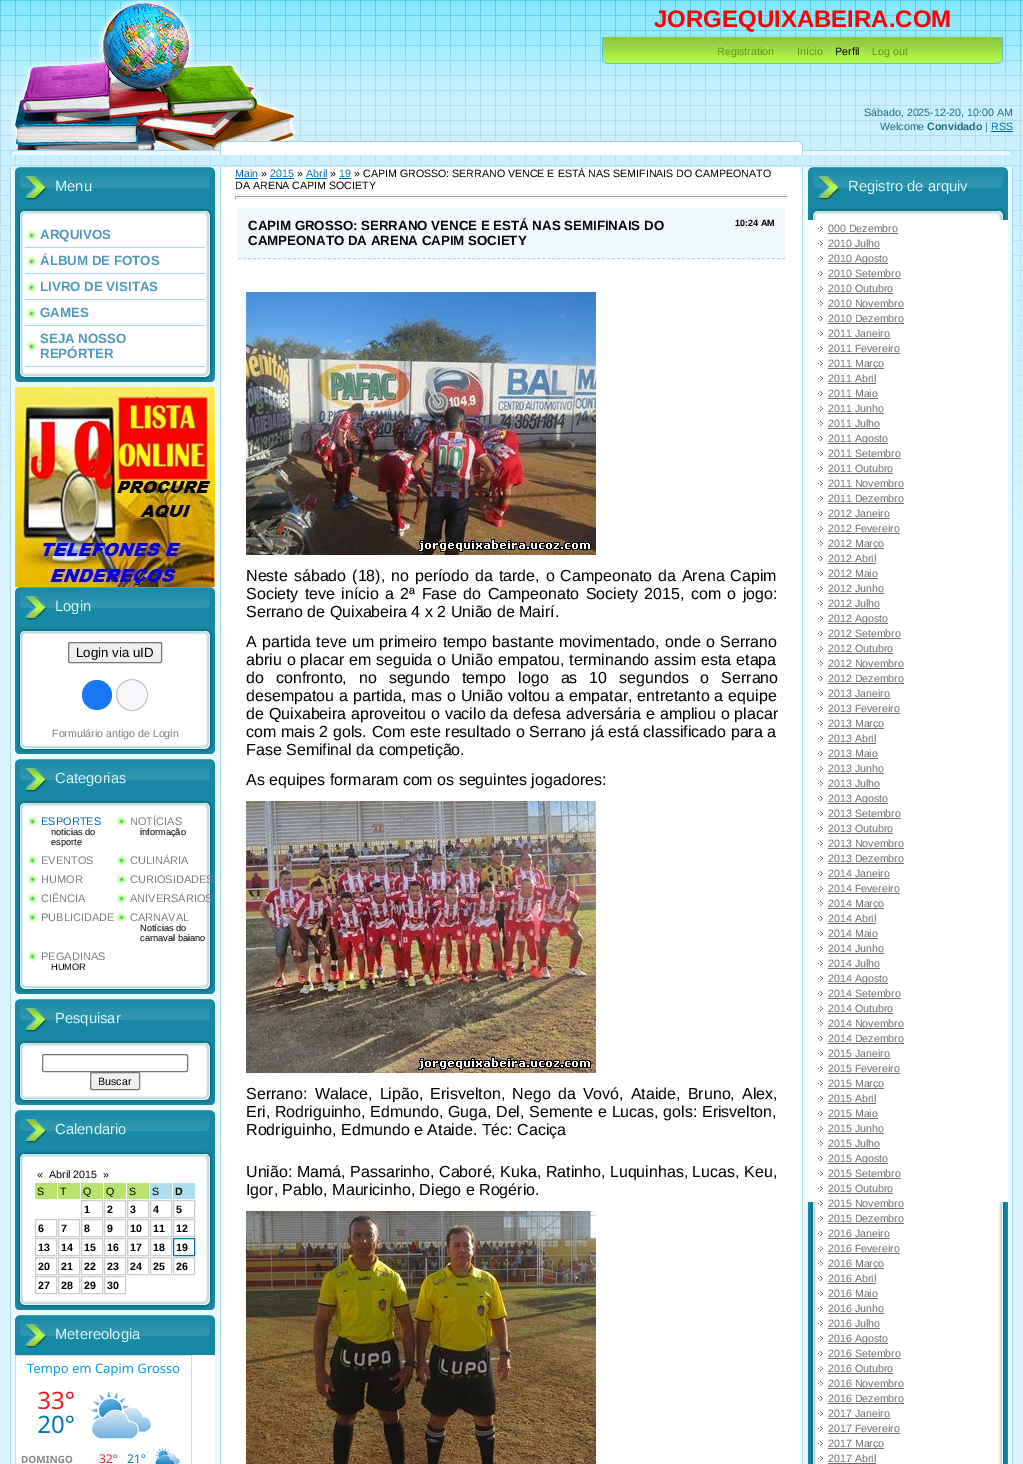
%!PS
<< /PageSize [1023 1464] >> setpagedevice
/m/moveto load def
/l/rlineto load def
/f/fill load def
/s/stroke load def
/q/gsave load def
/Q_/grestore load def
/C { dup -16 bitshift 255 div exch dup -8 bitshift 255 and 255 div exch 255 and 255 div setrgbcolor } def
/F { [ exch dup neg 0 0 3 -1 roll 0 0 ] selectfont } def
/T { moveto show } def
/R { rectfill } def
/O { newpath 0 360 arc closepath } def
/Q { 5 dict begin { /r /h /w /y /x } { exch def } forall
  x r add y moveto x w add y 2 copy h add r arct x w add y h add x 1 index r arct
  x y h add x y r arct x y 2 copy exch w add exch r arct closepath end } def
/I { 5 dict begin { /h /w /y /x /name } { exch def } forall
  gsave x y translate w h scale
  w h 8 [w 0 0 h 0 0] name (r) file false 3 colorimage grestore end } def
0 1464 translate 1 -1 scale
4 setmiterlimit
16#DCF6FF C
0 0 1023 1464 R
(1.rgb) 0 0 1023 598 I
(2.rgb) 298 141 715 14 I
(3.rgb) 10 0 288 155 I
(4.rgb) 602 37 401 27 I
/LiberationSans-Bold 24 F
16#FF0000 C
(JORGEQUIXABEIRA.COM) 654 27 T
/LiberationSans-Regular 10.65 F
16#599B00 C
(Registration) 717 55 T
(Início) 797 55 T
16#000000 C
(Perfil) 835 55 T
16#599B00 C
(Log out) 872 55 T
16#1F6C7F C
(Sábado, 2025-12-20, 10:00 AM) 864 116 T
(Welcome) 880 130 T
/LiberationSans-Bold 10.65 F
(Convidado) 927 130 T
/LiberationSans-Regular 10.65 F
(|) 985 130 T
16#016CAC C
(RSS) 991 130 T
16#0069A9 C
991 131 22 1 R
(5.rgb) 10 167 215 1297 I
(6.rgb) 15 207 200 175 I
16#1789A4 C
15 200 200 7 R
(7.rgb) 15 167 200 33 I
/LiberationSans-Regular 14.75 F
16#DCF6FF C
(Menu) 55 191 T
(8.rgb) 17 207 196 13 I
(9.rgb) 25 229 12 12 I
16#A2D7EC C
25 247 180 1 R
/LiberationSans-Bold 13.3 F
16#4F98BC C
(ARQUIVOS) 40 239 T
(9.rgb) 25 255 12 12 I
16#A2D7EC C
25 273 180 1 R
16#4F98BC C
(ÁLBUM DE FOTOS) 40 265 T
(9.rgb) 25 281 12 12 I
16#A2D7EC C
25 299 180 1 R
16#4F98BC C
(LIVRO DE VISITAS) 40 291 T
(9.rgb) 25 307 12 12 I
16#A2D7EC C
25 325 180 1 R
16#4F98BC C
(GAMES) 40 317 T
(9.rgb) 25 340 12 12 I
16#A2D7EC C
25 366 180 1 R
16#4F98BC C
(SEJA NOSSO) 40 343 T
(REPÓRTER) 40 358 T
(10.rgb) 15 387 200 200 I
(11.rgb) 15 627 200 127 I
16#1789A4 C
15 620 200 7 R
(7.rgb) 15 587 200 33 I
/LiberationSans-Regular 14.75 F
16#DCF6FF C
(Login) 55 611 T
(8.rgb) 17 627 196 13 I
16#EFEFEF C
68.5 642.5 93 20 1.5 Q q f Q_
16#767676 C
s
/LiberationSans-Regular 13.3 F
16#000000 C
(Login via uID) 76 657 T
16#1877F2 C
97 695 15 O f
16#F8F8FC C
132 695 15.5 O q f Q_
16#C4C4C4 C
s
/LiberationSans-Regular 10.65 F
16#7D7D7D C
(Formulário antigo de Login) 52 737 T
(12.rgb) 15 799 200 195 I
16#1789A4 C
15 792 200 7 R
(7.rgb) 15 759 200 33 I
/LiberationSans-Regular 14.75 F
16#DCF6FF C
(Categorias) 55 783 T
(8.rgb) 17 799 196 13 I
(9.rgb) 26 815 12 12 I
/LiberationSans-Regular 11 F
16#016CAC C
(ESPORTES) 41 825 T
/LiberationSans-Regular 9.25 F
16#000000 C
(noticias do) 51 835 T
(esporte) 51 845 T
(9.rgb) 115 815 12 12 I
/LiberationSans-Regular 11 F
16#7D7D7D C
(NOTÍCIAS) 130 825 T
/LiberationSans-Regular 9.25 F
16#000000 C
(informação) 140 835 T
(9.rgb) 26 854 12 12 I
/LiberationSans-Regular 11 F
16#7D7D7D C
(EVENTOS) 41 864 T
(9.rgb) 115 854 12 12 I
(CULINÁRIA) 130 864 T
(9.rgb) 26 873 12 12 I
(HUMOR) 41 883 T
(9.rgb) 115 873 12 12 I
(CURIOSIDADES) 130 883 T
(9.rgb) 26 892 12 12 I
(CIÊNCIA) 41 902 T
(9.rgb) 115 892 12 12 I
(ANIVERSÁRIOS) 130 902 T
(9.rgb) 26 911 12 12 I
(PUBLICIDADE) 41 921 T
(9.rgb) 115 911 12 12 I
(CARNAVAL) 130 921 T
/LiberationSans-Regular 9.25 F
16#000000 C
(Notícias do) 140 931 T
(carnaval baiano) 140 941 T
(9.rgb) 26 950 12 12 I
/LiberationSans-Regular 11 F
16#7D7D7D C
(PEGADINAS) 41 960 T
/LiberationSans-Regular 9.25 F
16#000000 C
(HUMOR) 51 970 T
(13.rgb) 15 1039 200 66 I
16#1789A4 C
15 1032 200 7 R
(7.rgb) 15 999 200 33 I
/LiberationSans-Regular 14.75 F
16#DCF6FF C
(Pesquisar) 55 1023 T
(8.rgb) 17 1039 196 13 I
16#767676 C
42.5 1054.5 145 17 1.5 Q s
16#EFEFEF C
90.5 1072.5 49 17 1.5 Q q f Q_
16#767676 C
s
/LiberationSans-Regular 10.65 F
16#000000 C
(Buscar) 98 1085 T
(14.rgb) 15 1150 200 160 I
16#1789A4 C
15 1143 200 7 R
(7.rgb) 15 1110 200 33 I
/LiberationSans-Regular 14.75 F
16#DCF6FF C
(Calendario) 55 1134 T
(8.rgb) 17 1150 196 13 I
/LiberationSans-Regular 10.65 F
16#000000 C
(«) 37 1178 T
(Abril 2015) 49 1178 T
(») 103 1178 T
16#B7E36E C
35 1183 22 16 R
16#000000 C
(S) 37 1195 T
16#B7E36E C
58 1183 22 16 R
16#000000 C
(T) 60 1195 T
16#B7E36E C
81 1183 22 16 R
16#000000 C
(Q) 83 1195 T
16#B7E36E C
104 1183 22 16 R
16#000000 C
(Q) 106 1195 T
16#B7E36E C
127 1183 22 16 R
16#000000 C
(S) 129 1195 T
16#ACDEEE C
150 1183 22 16 R
16#000000 C
(S) 152 1195 T
16#ACDEEE C
173 1183 22 16 R
/LiberationSans-Bold 10.65 F
16#000000 C
(D) 175 1195 T
16#CCCCCC C
81.5 1200.5 21 17 rectstroke
16#000000 C
(1) 84 1213 T
16#CCCCCC C
104.5 1200.5 21 17 rectstroke
16#000000 C
(2) 107 1213 T
16#CCCCCC C
127.5 1200.5 21 17 rectstroke
16#000000 C
(3) 130 1213 T
16#CCCCCC C
150.5 1200.5 21 17 rectstroke
16#000000 C
(4) 153 1213 T
16#CCCCCC C
173.5 1200.5 21 17 rectstroke
16#000000 C
(5) 176 1213 T
16#CCCCCC C
35.5 1219.5 21 17 rectstroke
16#000000 C
(6) 38 1232 T
16#CCCCCC C
58.5 1219.5 21 17 rectstroke
16#000000 C
(7) 61 1232 T
16#CCCCCC C
81.5 1219.5 21 17 rectstroke
16#000000 C
(8) 84 1232 T
16#CCCCCC C
104.5 1219.5 21 17 rectstroke
16#000000 C
(9) 107 1232 T
16#CCCCCC C
127.5 1219.5 21 17 rectstroke
16#000000 C
(10) 130 1232 T
16#CCCCCC C
150.5 1219.5 21 17 rectstroke
16#000000 C
(11) 153 1232 T
16#CCCCCC C
173.5 1219.5 21 17 rectstroke
16#000000 C
(12) 176 1232 T
16#CCCCCC C
35.5 1238.5 21 17 rectstroke
16#000000 C
(13) 38 1251 T
16#CCCCCC C
58.5 1238.5 21 17 rectstroke
16#000000 C
(14) 61 1251 T
16#CCCCCC C
81.5 1238.5 21 17 rectstroke
16#000000 C
(15) 84 1251 T
16#CCCCCC C
104.5 1238.5 21 17 rectstroke
16#000000 C
(16) 107 1251 T
16#CCCCCC C
127.5 1238.5 21 17 rectstroke
16#000000 C
(17) 130 1251 T
16#CCCCCC C
150.5 1238.5 21 17 rectstroke
16#000000 C
(18) 153 1251 T
16#016EAD C
173.5 1238.5 21 17 rectstroke
16#000000 C
(19) 176 1251 T
16#CCCCCC C
35.5 1257.5 21 17 rectstroke
16#000000 C
(20) 38 1270 T
16#CCCCCC C
58.5 1257.5 21 17 rectstroke
16#000000 C
(21) 61 1270 T
16#CCCCCC C
81.5 1257.5 21 17 rectstroke
16#000000 C
(22) 84 1270 T
16#CCCCCC C
104.5 1257.5 21 17 rectstroke
16#000000 C
(23) 107 1270 T
16#CCCCCC C
127.5 1257.5 21 17 rectstroke
16#000000 C
(24) 130 1270 T
16#CCCCCC C
150.5 1257.5 21 17 rectstroke
16#000000 C
(25) 153 1270 T
16#CCCCCC C
173.5 1257.5 21 17 rectstroke
16#000000 C
(26) 176 1270 T
16#CCCCCC C
35.5 1276.5 21 17 rectstroke
16#000000 C
(27) 38 1289 T
16#CCCCCC C
58.5 1276.5 21 17 rectstroke
16#000000 C
(28) 61 1289 T
16#CCCCCC C
81.5 1276.5 21 17 rectstroke
16#000000 C
(29) 84 1289 T
16#CCCCCC C
104.5 1276.5 21 17 rectstroke
16#000000 C
(30) 107 1289 T
16#FFFFFF C
192 1355 23 109 R
16#1789A4 C
15 1348 200 7 R
(7.rgb) 15 1315 200 33 I
/LiberationSans-Regular 14.75 F
16#DCF6FF C
(Metereologia) 55 1339 T
(15.rgb) 15 1355 177 109 I
16#FFFFFF C
225 167 573 1297 R
/LiberationSans-Regular 10.65 F
16#016CAC C
(Main) 235 177 T
16#0069A9 C
235 178 23 1 R
16#000000 C
(») 261 177 T
16#016CAC C
(2015) 270 177 T
16#0069A9 C
270 178 24 1 R
16#000000 C
(») 297 177 T
16#016CAC C
(Abril) 306 177 T
16#0069A9 C
306 178 21 1 R
16#000000 C
(») 330 177 T
16#016CAC C
(19) 339 177 T
16#0069A9 C
339 178 12 1 R
16#000000 C
(» CAPIM GROSSO: SERRANO VENCE E ESTÁ NAS SEMIFINAIS DO CAMPEONATO) 354 177 T
(DA ARENA CAPIM SOCIETY) 235 189 T
16#9F9F9F C
235 196 553 1 R
16#EEEEEE C
787 196 1 3 R
235 198 553 1 R
16#9F9F9F C
235 196 1 3 R
16#F1F8FB C
238 208 547 51 R
16#CBCBE6 C
[3 1.99] 0 setdash
238 258.5 m 547 0 l s
/LiberationSans-Bold 13.3 F
16#000000 C
(CAPIM GROSSO: SERRANO VENCE E ESTÁ NAS SEMIFINAIS DO) 248 230 T
/LiberationSans-Bold 9 F
(10:24 AM) 735 226 T
/LiberationSans-Bold 13.3 F
(CAMPEONATO DA ARENA CAPIM SOCIETY) 248 245 T
(16.rgb) 246 292 350 263 I
/LiberationSans-Regular 16 F
246 581 m 1.5 0 32 (Neste sábado \(18\), no período da tarde, o Campeonato da Arena Capim) widthshow
246 599 m 1.9 0 32 (Society teve início a 2ª Fase do Campeonato Society 2015, com o jogo:) widthshow
(Serrano de Quixabeira 4 x 2 União de Mairí.) 246 617 T
246 647 m .9 0 32 (A partida teve um primeiro tempo bastante movimentado, onde o Serrano) widthshow
246 665 m .5 0 32 (abriu o placar em seguida o União empatou, terminando assim esta etapa) widthshow
246 683 m 7.5 0 32 (do confronto, no segundo tempo logo as 10 segundos o Serrano) widthshow
246 701 m .6 0 32 (desempatou a partida, mas o União voltou a empatar, entretanto a equipe) widthshow
246 719 m .5 0 32 (de Quixabeira aproveitou o vacilo da defesa adversária e ampliou o placar) widthshow
246 737 m .3 0 32 (com mais 2 gols. Com este resultado o Serrano já está classificado para a) widthshow
(Fase Semifinal da competição.) 246 755 T
(As equipes formaram com os seguintes jogadores:) 246 785 T
(17.rgb) 246 801 350 272 I
246 1099 m 2.75 0 32 (Serrano: Walace, Lipão, Erisvelton, Nego da Vovó, Ataide, Bruno, Alex,) widthshow
246 1117 m .25 0 32 (Eri, Rodriguinho, Edmundo, Guga, Del, Semente e Lucas, gols: Erisvelton,) widthshow
(Rodriguinho, Edmundo e Ataide. Téc: Caciça) 246 1135 T
(União: Mamá, Passarinho, Caboré, Kuka, Ratinho, Luquinhas, Lucas, Keu,) 246 1177 T
(Igor, Pablo, Mauricinho, Diego e Rogério.) 246 1195 T
(18.rgb) 246 1211 350 253 I
(19.rgb) 798 167 215 1297 I
16#FFFFFF C
808 220 200 982 R
(20.rgb) 808 1202 200 262 I
16#1789A4 C
808 200 200 7 R
(7.rgb) 808 167 200 33 I
/LiberationSans-Regular 14.75 F
16#DCF6FF C
(Registro de arquiv) 848 191 T
(21.rgb) 808 207 200 13 I
(22.rgb) 818 226 5 5 I
/LiberationSans-Regular 10.65 F
16#6E6E6E C
(000 Dezembro) 828 232 T
828 233 70 1 R
(22.rgb) 818 241 5 5 I
(2010 Julho) 828 247 T
828 248 52 1 R
(22.rgb) 818 256 5 5 I
828 263 60 1 R
(2010 Agosto) 828 262 T
(22.rgb) 818 271 5 5 I
(2010 Setembro) 828 277 T
828 278 73 1 R
(22.rgb) 818 286 5 5 I
(2010 Outubro) 828 292 T
828 293 65 1 R
(22.rgb) 818 301 5 5 I
(2010 Novembro) 828 307 T
828 308 76 1 R
(22.rgb) 818 316 5 5 I
(2010 Dezembro) 828 322 T
828 323 76 1 R
(22.rgb) 818 331 5 5 I
(2011 Janeiro) 828 337 T
828 338 62 1 R
(22.rgb) 818 346 5 5 I
(2011 Fevereiro) 828 352 T
828 353 72 1 R
(22.rgb) 818 361 5 5 I
828 368 56 1 R
(2011 Março) 828 367 T
(22.rgb) 818 376 5 5 I
(2011 Abril) 828 382 T
828 383 48 1 R
(22.rgb) 818 391 5 5 I
(2011 Maio) 828 397 T
828 398 50 1 R
(22.rgb) 818 406 5 5 I
(2011 Junho) 828 412 T
828 413 56 1 R
(22.rgb) 818 421 5 5 I
(2011 Julho) 828 427 T
828 428 52 1 R
(22.rgb) 818 436 5 5 I
828 443 60 1 R
(2011 Agosto) 828 442 T
(22.rgb) 818 451 5 5 I
(2011 Setembro) 828 457 T
828 458 73 1 R
(22.rgb) 818 466 5 5 I
(2011 Outubro) 828 472 T
828 473 65 1 R
(22.rgb) 818 481 5 5 I
(2011 Novembro) 828 487 T
828 488 76 1 R
(22.rgb) 818 496 5 5 I
(2011 Dezembro) 828 502 T
828 503 76 1 R
(22.rgb) 818 511 5 5 I
(2012 Janeiro) 828 517 T
828 518 62 1 R
(22.rgb) 818 526 5 5 I
(2012 Fevereiro) 828 532 T
828 533 72 1 R
(22.rgb) 818 541 5 5 I
828 548 56 1 R
(2012 Março) 828 547 T
(22.rgb) 818 556 5 5 I
(2012 Abril) 828 562 T
828 563 48 1 R
(22.rgb) 818 571 5 5 I
(2012 Maio) 828 577 T
828 578 50 1 R
(22.rgb) 818 586 5 5 I
(2012 Junho) 828 592 T
828 593 56 1 R
(22.rgb) 818 601 5 5 I
(2012 Julho) 828 607 T
828 608 52 1 R
(22.rgb) 818 616 5 5 I
828 623 60 1 R
(2012 Agosto) 828 622 T
(22.rgb) 818 631 5 5 I
(2012 Setembro) 828 637 T
828 638 73 1 R
(22.rgb) 818 646 5 5 I
(2012 Outubro) 828 652 T
828 653 65 1 R
(22.rgb) 818 661 5 5 I
(2012 Novembro) 828 667 T
828 668 76 1 R
(22.rgb) 818 676 5 5 I
(2012 Dezembro) 828 682 T
828 683 76 1 R
(22.rgb) 818 691 5 5 I
(2013 Janeiro) 828 697 T
828 698 62 1 R
(22.rgb) 818 706 5 5 I
(2013 Fevereiro) 828 712 T
828 713 72 1 R
(22.rgb) 818 721 5 5 I
828 728 56 1 R
(2013 Março) 828 727 T
(22.rgb) 818 736 5 5 I
(2013 Abril) 828 742 T
828 743 48 1 R
(22.rgb) 818 751 5 5 I
(2013 Maio) 828 757 T
828 758 50 1 R
(22.rgb) 818 766 5 5 I
(2013 Junho) 828 772 T
828 773 56 1 R
(22.rgb) 818 781 5 5 I
(2013 Julho) 828 787 T
828 788 52 1 R
(22.rgb) 818 796 5 5 I
828 803 60 1 R
(2013 Agosto) 828 802 T
(22.rgb) 818 811 5 5 I
(2013 Setembro) 828 817 T
828 818 73 1 R
(22.rgb) 818 826 5 5 I
(2013 Outubro) 828 832 T
828 833 65 1 R
(22.rgb) 818 841 5 5 I
(2013 Novembro) 828 847 T
828 848 76 1 R
(22.rgb) 818 856 5 5 I
(2013 Dezembro) 828 862 T
828 863 76 1 R
(22.rgb) 818 871 5 5 I
(2014 Janeiro) 828 877 T
828 878 62 1 R
(22.rgb) 818 886 5 5 I
(2014 Fevereiro) 828 892 T
828 893 72 1 R
(22.rgb) 818 901 5 5 I
828 908 56 1 R
(2014 Março) 828 907 T
(22.rgb) 818 916 5 5 I
(2014 Abril) 828 922 T
828 923 48 1 R
(22.rgb) 818 931 5 5 I
(2014 Maio) 828 937 T
828 938 50 1 R
(22.rgb) 818 946 5 5 I
(2014 Junho) 828 952 T
828 953 56 1 R
(22.rgb) 818 961 5 5 I
(2014 Julho) 828 967 T
828 968 52 1 R
(22.rgb) 818 976 5 5 I
828 983 60 1 R
(2014 Agosto) 828 982 T
(22.rgb) 818 991 5 5 I
(2014 Setembro) 828 997 T
828 998 73 1 R
(22.rgb) 818 1006 5 5 I
(2014 Outubro) 828 1012 T
828 1013 65 1 R
(22.rgb) 818 1021 5 5 I
(2014 Novembro) 828 1027 T
828 1028 76 1 R
(22.rgb) 818 1036 5 5 I
(2014 Dezembro) 828 1042 T
828 1043 76 1 R
(22.rgb) 818 1051 5 5 I
(2015 Janeiro) 828 1057 T
828 1058 62 1 R
(22.rgb) 818 1066 5 5 I
(2015 Fevereiro) 828 1072 T
828 1073 72 1 R
(22.rgb) 818 1081 5 5 I
828 1088 56 1 R
(2015 Março) 828 1087 T
(22.rgb) 818 1096 5 5 I
(2015 Abril) 828 1102 T
828 1103 48 1 R
(22.rgb) 818 1111 5 5 I
(2015 Maio) 828 1117 T
828 1118 50 1 R
(22.rgb) 818 1126 5 5 I
(2015 Junho) 828 1132 T
828 1133 56 1 R
(22.rgb) 818 1141 5 5 I
(2015 Julho) 828 1147 T
828 1148 52 1 R
(22.rgb) 818 1156 5 5 I
828 1163 60 1 R
(2015 Agosto) 828 1162 T
(22.rgb) 818 1171 5 5 I
(2015 Setembro) 828 1177 T
828 1178 73 1 R
(22.rgb) 818 1186 5 5 I
(2015 Outubro) 828 1192 T
828 1193 65 1 R
(22.rgb) 818 1201 5 5 I
(2015 Novembro) 828 1207 T
828 1208 76 1 R
(22.rgb) 818 1216 5 5 I
(2015 Dezembro) 828 1222 T
828 1223 76 1 R
(22.rgb) 818 1231 5 5 I
(2016 Janeiro) 828 1237 T
828 1238 62 1 R
(22.rgb) 818 1246 5 5 I
(2016 Fevereiro) 828 1252 T
828 1253 72 1 R
(22.rgb) 818 1261 5 5 I
828 1268 56 1 R
(2016 Março) 828 1267 T
(22.rgb) 818 1276 5 5 I
(2016 Abril) 828 1282 T
828 1283 48 1 R
(22.rgb) 818 1291 5 5 I
(2016 Maio) 828 1297 T
828 1298 50 1 R
(22.rgb) 818 1306 5 5 I
(2016 Junho) 828 1312 T
828 1313 56 1 R
(22.rgb) 818 1321 5 5 I
(2016 Julho) 828 1327 T
828 1328 52 1 R
(22.rgb) 818 1336 5 5 I
828 1343 60 1 R
(2016 Agosto) 828 1342 T
(22.rgb) 818 1351 5 5 I
(2016 Setembro) 828 1357 T
828 1358 73 1 R
(22.rgb) 818 1366 5 5 I
(2016 Outubro) 828 1372 T
828 1373 65 1 R
(22.rgb) 818 1381 5 5 I
(2016 Novembro) 828 1387 T
828 1388 76 1 R
(22.rgb) 818 1396 5 5 I
(2016 Dezembro) 828 1402 T
828 1403 76 1 R
(22.rgb) 818 1411 5 5 I
(2017 Janeiro) 828 1417 T
828 1418 62 1 R
(22.rgb) 818 1426 5 5 I
(2017 Fevereiro) 828 1432 T
828 1433 72 1 R
(22.rgb) 818 1441 5 5 I
828 1448 56 1 R
(2017 Março) 828 1447 T
(22.rgb) 818 1456 5 5 I
(2017 Abril) 828 1462 T
828 1463 48 1 R
showpage
